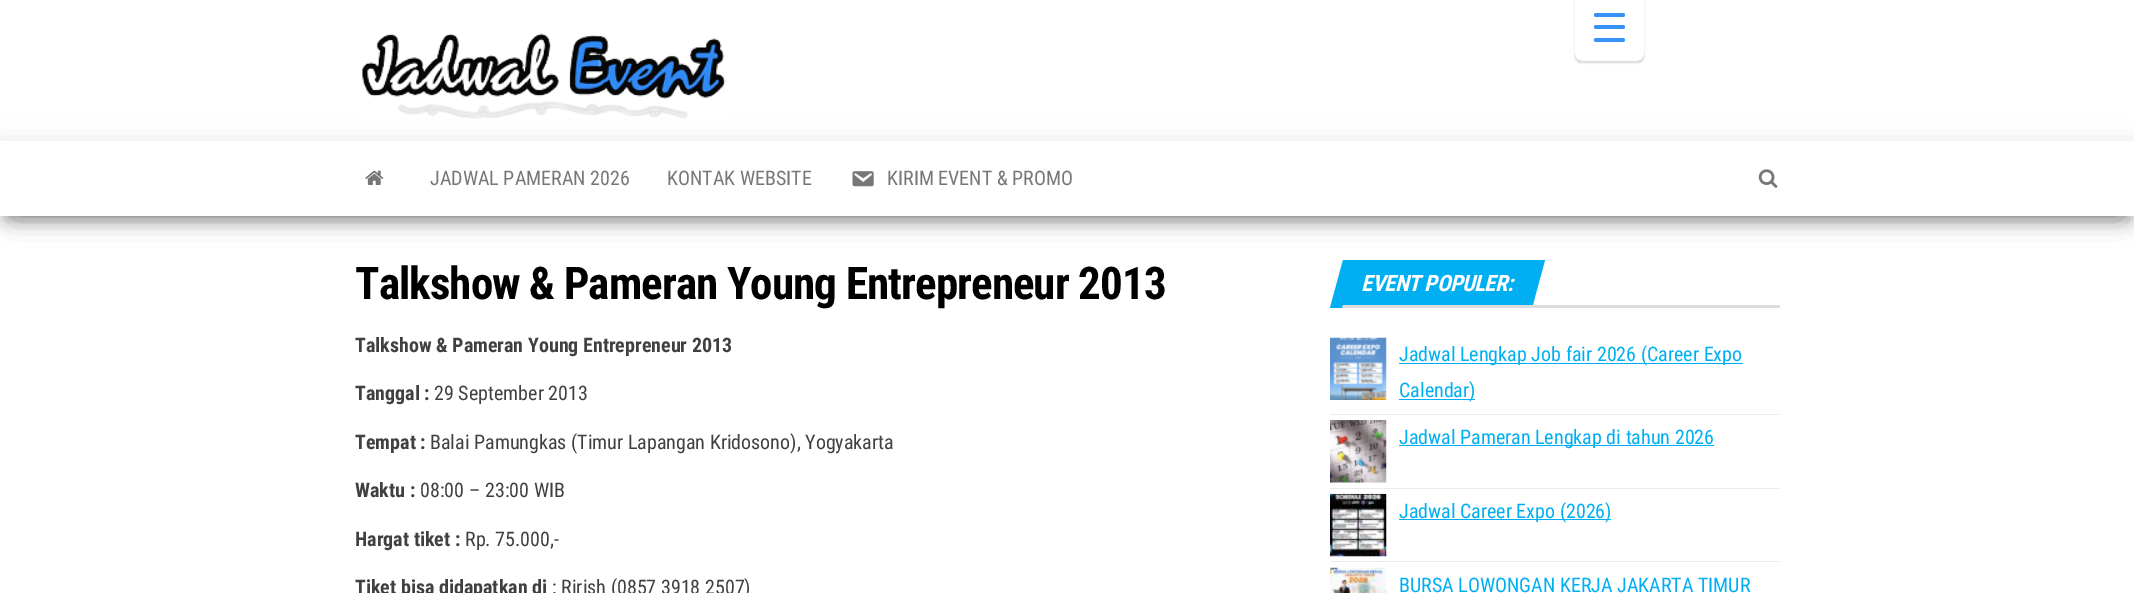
%!PS
<< /PageSize [2134 593] /PageUsesTransparency true >> setpagedevice
/m/moveto load def
/l/rlineto load def
/c/rcurveto load def
/z/closepath load def
/f/fill load def
/q/gsave load def
/Q_/grestore load def
/C { dup -16 bitshift 255 div exch dup -8 bitshift 255 and 255 div exch 255 and 255 div setrgbcolor } def
/F { [ exch dup neg 0 0 3 -1 roll 0 0 ] selectfont } def
/T { moveto show } def
/R { rectfill } def
/A { dup .setfillconstantalpha .setstrokeconstantalpha } def
/Q { 5 dict begin { /r /h /w /y /x } { exch def } forall
  x r add y moveto x w add y 2 copy h add r arct x w add y h add x 1 index r arct
  x y h add x y r arct x y 2 copy exch w add exch r arct closepath end } def
/S { 12 dict begin { /a /b /q /h /w /y /x } { exch def } forall gsave /was 0 def
  9 -2 -9 { dup b mul 4 div /e exch def 1 sub .425 mul 2.718 exch exp 1 add a .99 .min exch div /now exch def
    1 1 now sub 1 was sub div sub A /was now def
    w h .min e 2 mul add 0 gt { x e sub y e sub w e 2 mul add h e 2 mul add
      q e add b .6 mul add w h .min 2 div e add .min 0 .max Q fill } if } for grestore end } def
/I { 5 dict begin { /h /w /y /x /name } { exch def } forall
  gsave x y translate w h scale
  w h 8 [w 0 0 h 0 0] name (r) file false 3 colorimage grestore end } def
0 .pushpdf14devicefilter
0 593 translate 1 -1 scale
4 setmiterlimit
16#FFFFFF C
0 0 2134 593 R
16#000000 C
0 145 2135 75 0 12.5 .12 S
(1.rgb) 361 33 365 86 I
q
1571 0 m 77 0 l 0 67 l -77 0 l z 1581 -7 m 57 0 l 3.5 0 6 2.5 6 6 c 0 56 l 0 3.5 -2.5 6 -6 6 c -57 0 l -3.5 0 -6 -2.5 -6 -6 c 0 -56 l 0 -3.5 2.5 -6 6 -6 c z eoclip newpath
1575 -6 69 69 6 1 .15 S
Q_
16#3692F7 C
1594 25 31 4 2 Q f
1594 13 31 4 2 Q f
1594 38 31 4 2 Q f
16#000000 C
6 158 2123 62 0 6 .2 S
15 169 2105 45 0 12.5 .42 S
16#FFFFFF C
0 141 2134 75 R
(2.rgb) 365 170 19 15 I
/RobotoCondensed-Regular 20 F
16#777777 C
(JADWAL PAMERAN 2026) 430 185 T
(KONTAK WEBSITE) 667 185 T
(3.rgb) 852 171 22 16 I
(KIRIM EVENT & PROMO) 887 185 T
(4.rgb) 1758 169 20 19 I
/RobotoCondensed-Bold 45 F
16#000000 C
355 299 m -.9 0 (Talkshow & Pameran Young Entrepreneur 2013) ashow
/RobotoCondensed-Bold 20 F
16#404040 C
(Talkshow & Pameran Young Entrepreneur 2013) 355 352 T
(Tanggal :) 355 400 T
/RobotoCondensed-Regular 20 F
(29 September 2013) 434 400 T
/RobotoCondensed-Bold 20 F
(Tempat :) 355 449 T
/RobotoCondensed-Regular 20 F
(Balai Pamungkas \(Timur Lapangan Kridosono\), Yogyakarta) 430 449 T
/RobotoCondensed-Bold 20 F
(Waktu :) 355 497 T
/RobotoCondensed-Regular 20 F
(08:00 – 23:00 WIB) 420 497 T
/RobotoCondensed-Bold 20 F
(Hargat tiket :) 355 546 T
/RobotoCondensed-Regular 20 F
(Rp. 75.000,-) 465 546 T
/RobotoCondensed-Bold 20 F
(Tiket bisa didapatkan di) 355 594 T
/RobotoCondensed-Regular 20 F
(: Rirish \(0857 3918 2507\)) 552 594 T
16#00AFF2 C
1343 260 m 202 0 l -13 48 l -202 0 l z f
/RobotoCondensed-BoldItalic 22.5 F
16#FFFFFF C
1361 291 m -.5 0 (EVENT POPULER:) ashow
16#DDDDDD C
1343 305 m 437 0 l 0 3 l -438 0 l z f
16#EBEBEB C
1330 414 450 1 R
(5.rgb) 1330 337 57 63 I
16#00AFF2 C
1399 363 344 1 R
/RobotoCondensed-Regular 20 F
(Jadwal Lengkap Job fair 2026 \(Career Expo) 1399 361 T
1399 399 76 1 R
(Calendar\)) 1399 397 T
16#EBEBEB C
1330 488 450 1 R
(6.rgb) 1330 420 57 63 I
16#00AFF2 C
1399 445 315 1 R
(Jadwal Pameran Lengkap di tahun 2026) 1399 444 T
16#EBEBEB C
1330 561 450 1 R
(7.rgb) 1330 493 57 64 I
16#00AFF2 C
1399 519 212 1 R
(Jadwal Career Expo \(2026\)) 1399 518 T
(8.rgb) 1330 567 57 26 I
(BURSA LOWONGAN KERJA JAKARTA TIMUR) 1399 592 T
.poppdf14devicefilter showpage
